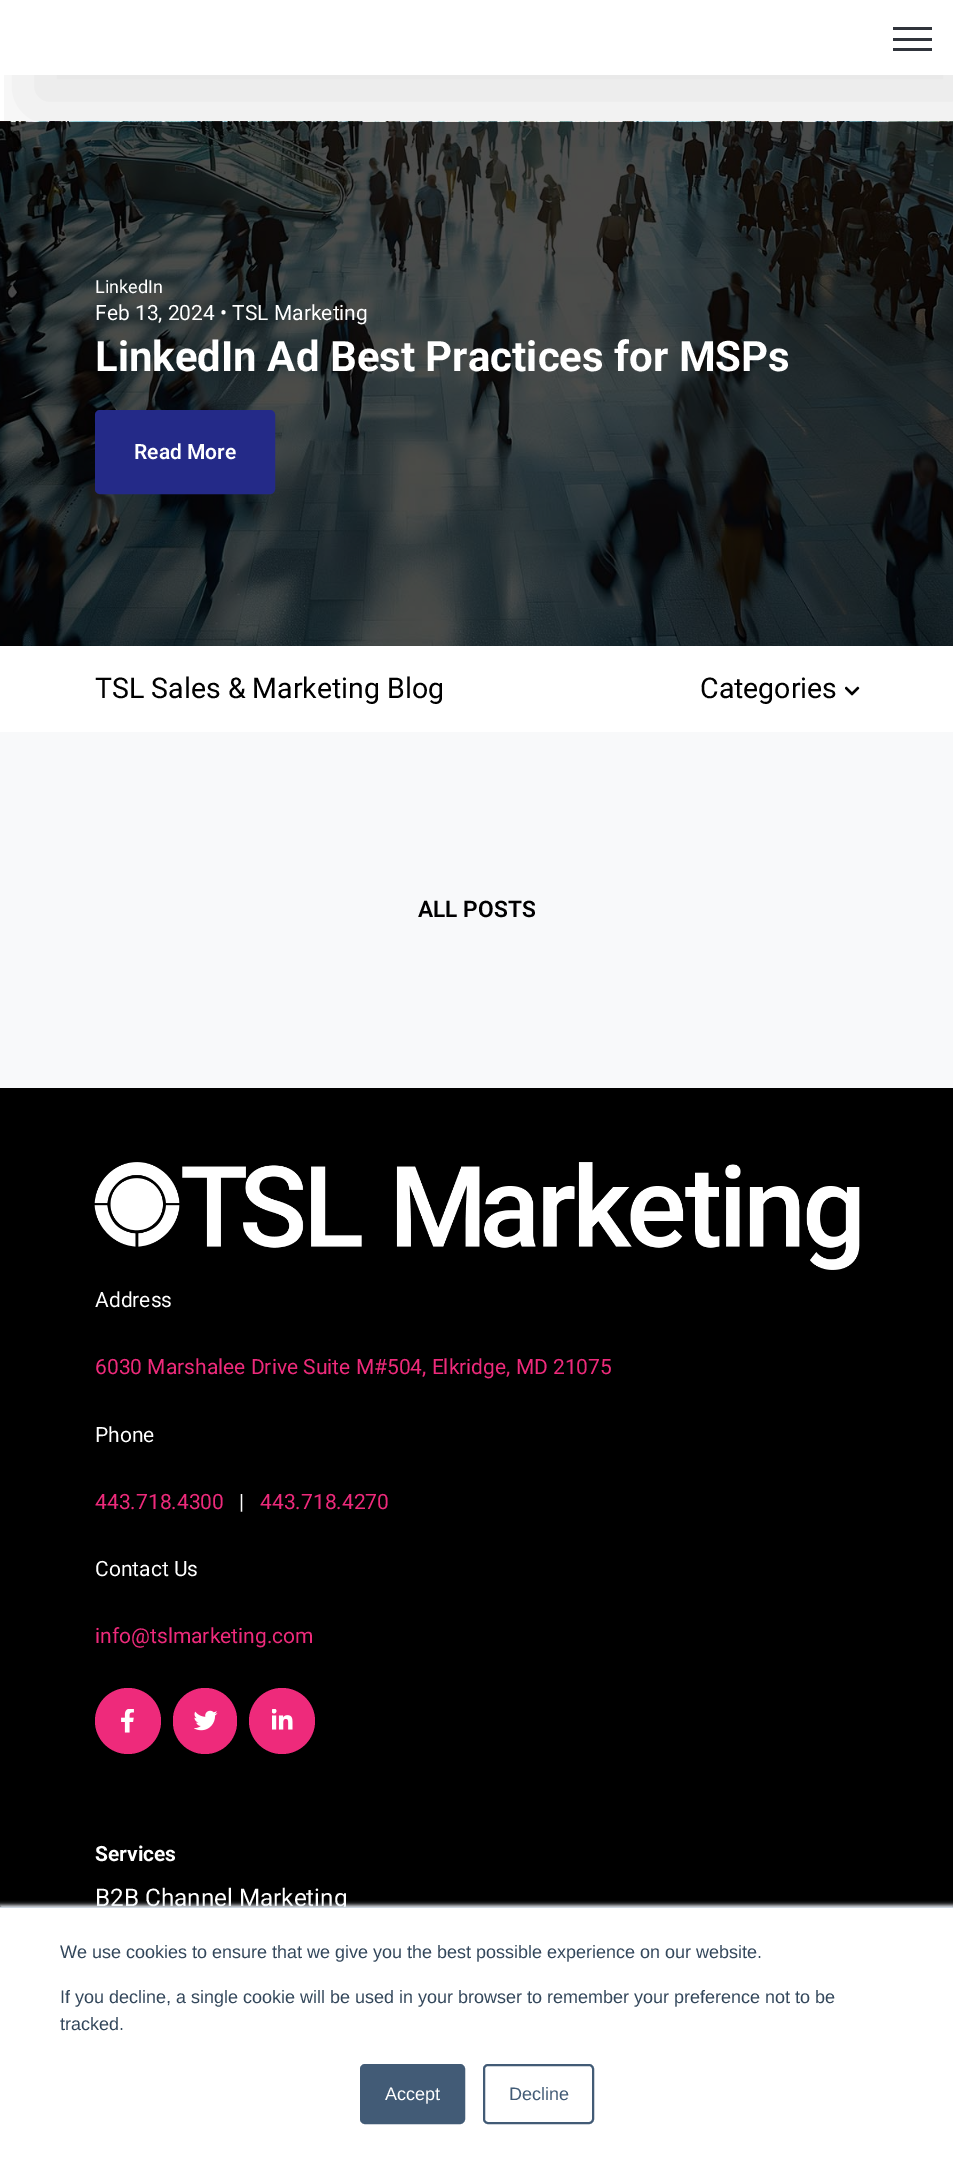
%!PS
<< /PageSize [953 2163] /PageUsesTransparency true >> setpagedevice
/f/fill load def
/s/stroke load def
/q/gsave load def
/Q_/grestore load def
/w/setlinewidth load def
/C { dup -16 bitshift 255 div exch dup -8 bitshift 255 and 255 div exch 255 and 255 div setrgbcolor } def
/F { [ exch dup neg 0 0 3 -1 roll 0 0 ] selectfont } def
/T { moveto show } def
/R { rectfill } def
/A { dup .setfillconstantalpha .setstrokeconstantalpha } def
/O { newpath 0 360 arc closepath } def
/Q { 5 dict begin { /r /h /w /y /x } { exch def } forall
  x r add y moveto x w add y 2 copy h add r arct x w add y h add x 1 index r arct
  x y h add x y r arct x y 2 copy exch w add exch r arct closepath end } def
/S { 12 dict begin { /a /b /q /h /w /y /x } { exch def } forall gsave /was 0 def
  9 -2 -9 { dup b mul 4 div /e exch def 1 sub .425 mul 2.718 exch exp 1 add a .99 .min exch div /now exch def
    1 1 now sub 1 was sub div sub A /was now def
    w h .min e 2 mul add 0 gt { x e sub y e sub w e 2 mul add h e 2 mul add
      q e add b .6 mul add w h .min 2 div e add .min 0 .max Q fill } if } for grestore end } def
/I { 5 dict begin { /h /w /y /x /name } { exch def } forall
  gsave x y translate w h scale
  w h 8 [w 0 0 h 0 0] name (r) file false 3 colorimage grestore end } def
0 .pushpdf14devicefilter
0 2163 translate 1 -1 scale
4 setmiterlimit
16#FFFFFF C
0 0 953 2163 R
(1.rgb) 0 121 953 525 I
q
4 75 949 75 rectclip
16#000000 C
23 38 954 75 0 45 .1 S
Q_
16#30343B C
893 27 39 3 R
893 38 39 3 R
893 48 39 3 R
/Roboto-Regular 18 F
16#FFFFFF C
(LinkedIn) 95 293 T
/Roboto-Regular 21 F
(Feb 13, 2024 • TSL Marketing) 95 320 T
/Roboto-Bold 42 F
(LinkedIn Ad Best Practices for MSPs) 95 371 T
16#242A88 C
96 411 178 82 4 Q q f Q_
2 w
s
/Roboto-SemiBold 21 F
16#FFFFFF C
(Read More) 134 459 T
/Roboto-Regular 28.5 F
16#000000 C
(TSL Sales & Marketing Blog) 95 698 T
(Categories) 700 698 T
(2.rgb) 845 686 15 10 I
16#F8F9FA C
0 732 953 356 R
/Roboto-SemiBold 22.75 F
16#000000 C
(ALL POSTS) 418 917 T
0 1088 953 819 R
(3.rgb) 94 1162 766 108 I
/Roboto-Regular 21 F
16#FFFFFF C
(Address) 95 1307 T
16#EE2A7B C
(6030 Marshalee Drive Suite M#504, Elkridge, MD 21075) 95 1374 T
16#FFFFFF C
(Phone) 95 1442 T
16#EE2A7B C
(443.718.4300) 95 1509 T
16#FFFFFF C
(|) 239 1509 T
16#EE2A7B C
(443.718.4270) 260 1509 T
16#FFFFFF C
(Contact Us) 95 1576 T
16#EE2A7B C
(info@tslmarketing.com) 95 1643 T
128 1721 33 O f
(4.rgb) 121 1709 13 24 I
173 1688 64 66 32 Q f
(5.rgb) 194 1710 24 21 I
282 1721 33 O f
(6.rgb) 272 1709 21 21 I
/Roboto-Bold 21 F
16#FFFFFF C
(Services) 95 1861 T
/Roboto-Regular 24.25 F
(B2B Channel Marketing) 95 1906 T
16#EAF0F6 C
0 1905 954 257 0 2 1 S
16#CBD6E2 C
0 1907 953 1 R
16#FFFFFF C
0 1908 953 255 R
/LiberationSans-Regular 18 F
16#33475B C
(We use cookies to ensure that we give you the best possible experience on our website.) 60 1958 T
(If you decline, a single cookie will be used in your browser to remember your preference not to be) 60 2003 T
(tracked.) 60 2030 T
16#425B76 C
361 2065 103 58 4 Q q f Q_
s
16#FFFFFF C
(Accept) 385 2100 T
16#425B76 C
484 2065 109 58 4 Q s
(Decline) 509 2100 T
.poppdf14devicefilter showpage
